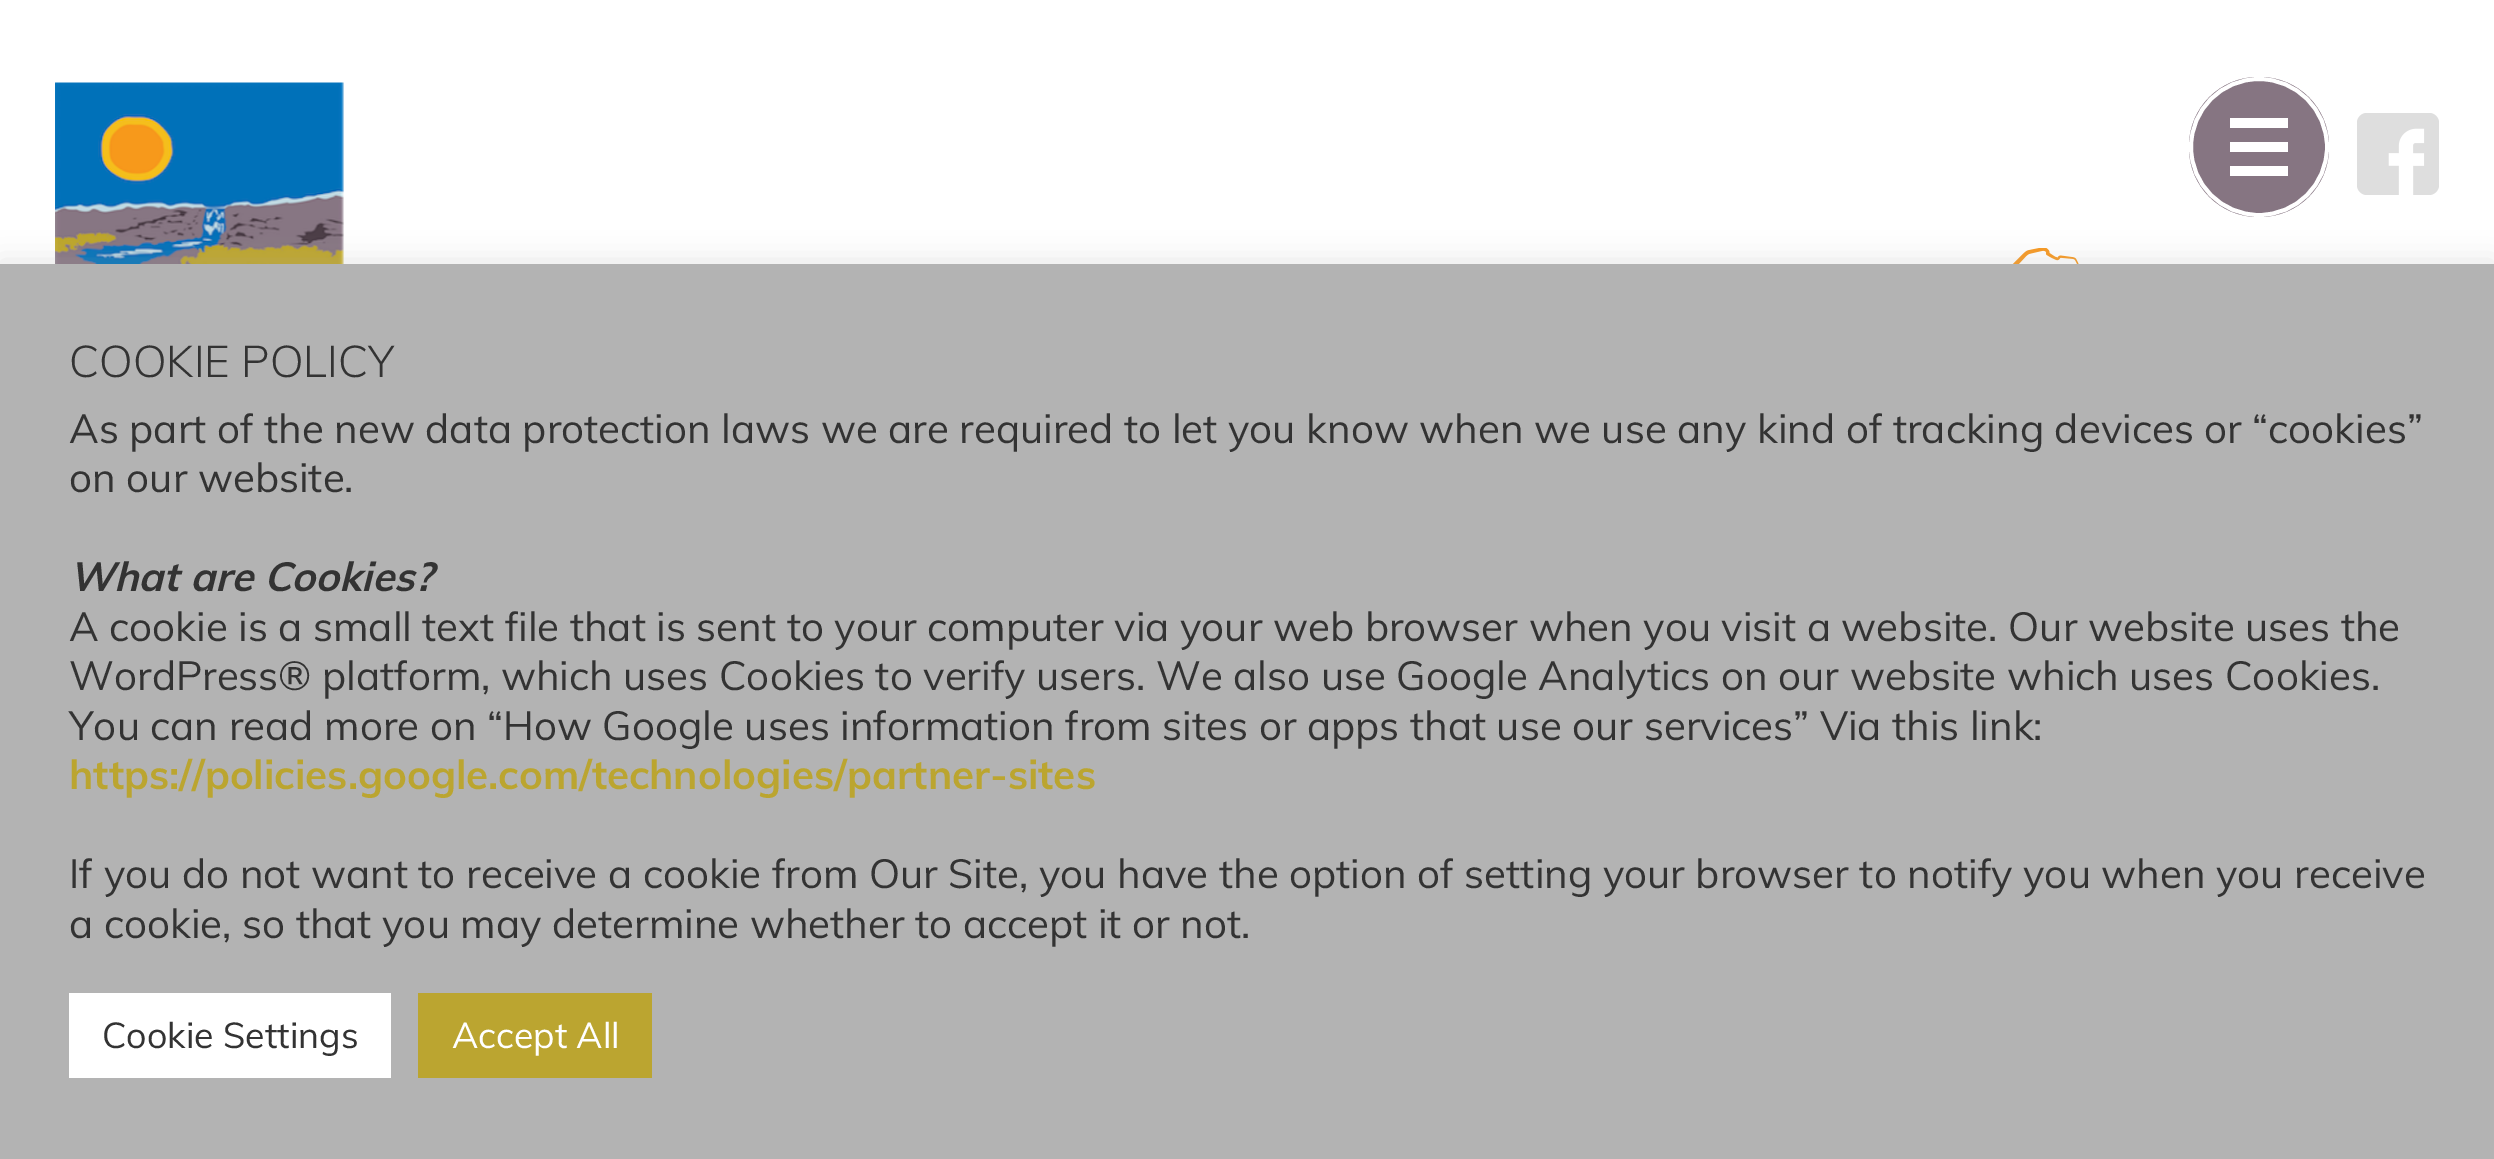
%!PS
<< /PageSize [2494 1159] /PageUsesTransparency true >> setpagedevice
/f/fill load def
/s/stroke load def
/q/gsave load def
/Q_/grestore load def
/w/setlinewidth load def
/C { dup -16 bitshift 255 div exch dup -8 bitshift 255 and 255 div exch 255 and 255 div setrgbcolor } def
/F { [ exch dup neg 0 0 3 -1 roll 0 0 ] selectfont } def
/T { moveto show } def
/R { rectfill } def
/A { dup .setfillconstantalpha .setstrokeconstantalpha } def
/O { newpath 0 360 arc closepath } def
/Q { 5 dict begin { /r /h /w /y /x } { exch def } forall
  x r add y moveto x w add y 2 copy h add r arct x w add y h add x 1 index r arct
  x y h add x y r arct x y 2 copy exch w add exch r arct closepath end } def
/S { 12 dict begin { /a /b /q /h /w /y /x } { exch def } forall gsave /was 0 def
  9 -2 -9 { dup b mul 4 div /e exch def 1 sub .425 mul 2.718 exch exp 1 add a .99 .min exch div /now exch def
    1 1 now sub 1 was sub div sub A /was now def
    w h .min e 2 mul add 0 gt { x e sub y e sub w e 2 mul add h e 2 mul add
      q e add b .6 mul add w h .min 2 div e add .min 0 .max Q fill } if } for grestore end } def
/I { 5 dict begin { /h /w /y /x /name } { exch def } forall
  gsave x y translate w h scale
  w h 8 [w 0 0 h 0 0] name (r) file false 3 colorimage grestore end } def
0 .pushpdf14devicefilter
0 1159 translate 1 -1 scale
4 setmiterlimit
16#FFFFFF C
0 0 2494 1159 R
(1.rgb) 55 82 289 182 I
16#867582 C
2189 77 140 140 69 Q f
q
2189 77 140 140 69 Q clip newpath
16#FFFFFF C
3.9 w
2259 147 68 O s
Q_
16#FFFFFF C
2230 118 58 10 R
2230 142 58 10 R
2230 166 58 10 R
(2.rgb) 2357 113 82 82 I
(3.rgb) 2012 248 67 16 I
16#ACABAB C
0 261 2494 897 0 14 .3 S
16#B3B3B3 C
0 264 2494 895 R
/Muli-Light 44 F
16#333333 C
(COOKIE POLICY) 69 377 T
/Muli-Regular 40.33 F
(As part of the new data protection laws we are required to let you know when we use any kind of tracking devices or “cookies”) 69 443 T
(on our website.) 69 492 T
/Muli-BoldItalic 40.33 F
(What are Cookies?) 69 591 T
/Muli-Regular 40.33 F
(A cookie is a small text file that is sent to your computer via your web browser when you visit a website. Our website uses the) 69 641 T
(WordPress® platform, which uses Cookies to verify users. We also use Google Analytics on our website which uses Cookies.) 69 690 T
(You can read more on “How Google uses information from sites or apps that use our services” Via this link:) 69 740 T
/Muli-Bold 40.33 F
16#BBA530 C
(https://policies.google.com/technologies/partner-sites) 69 789 T
/Muli-Regular 40.33 F
16#333333 C
(If you do not want to receive a cookie from Our Site, you have the option of setting your browser to notify you when you receive) 69 888 T
(a cookie, so that you may determine whether to accept it or not.) 69 938 T
16#FFFFFF C
69 993 322 85 R
/Muli-Regular 35.75 F
16#333333 C
(Cookie Settings) 102 1048 T
16#BBA530 C
418 993 234 85 R
16#FFFFFF C
(Accept All) 452 1048 T
.poppdf14devicefilter showpage
